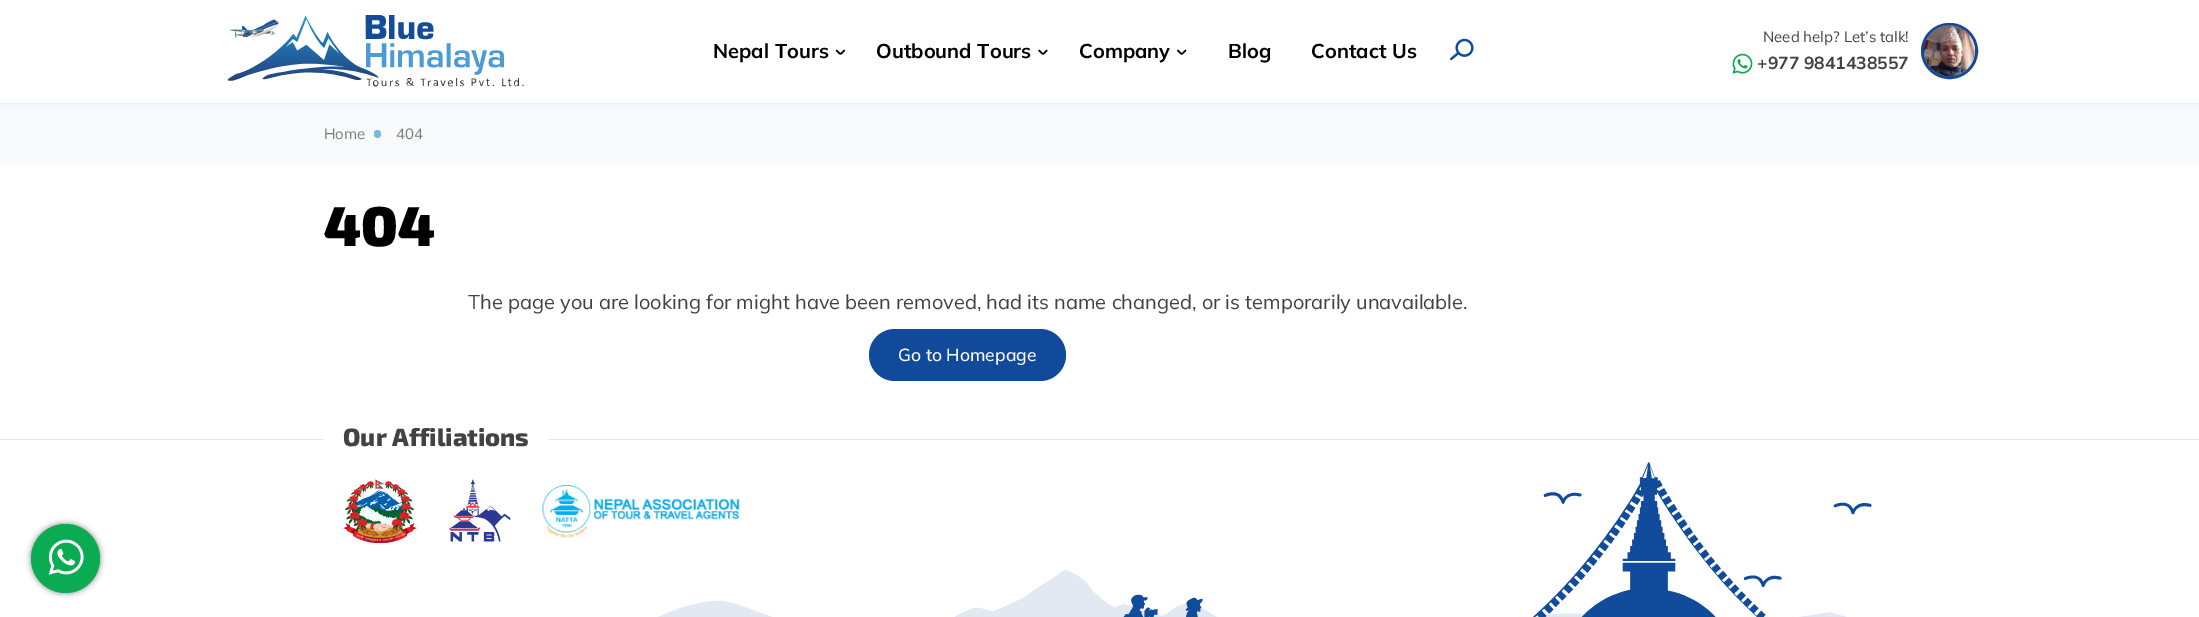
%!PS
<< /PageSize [2199 617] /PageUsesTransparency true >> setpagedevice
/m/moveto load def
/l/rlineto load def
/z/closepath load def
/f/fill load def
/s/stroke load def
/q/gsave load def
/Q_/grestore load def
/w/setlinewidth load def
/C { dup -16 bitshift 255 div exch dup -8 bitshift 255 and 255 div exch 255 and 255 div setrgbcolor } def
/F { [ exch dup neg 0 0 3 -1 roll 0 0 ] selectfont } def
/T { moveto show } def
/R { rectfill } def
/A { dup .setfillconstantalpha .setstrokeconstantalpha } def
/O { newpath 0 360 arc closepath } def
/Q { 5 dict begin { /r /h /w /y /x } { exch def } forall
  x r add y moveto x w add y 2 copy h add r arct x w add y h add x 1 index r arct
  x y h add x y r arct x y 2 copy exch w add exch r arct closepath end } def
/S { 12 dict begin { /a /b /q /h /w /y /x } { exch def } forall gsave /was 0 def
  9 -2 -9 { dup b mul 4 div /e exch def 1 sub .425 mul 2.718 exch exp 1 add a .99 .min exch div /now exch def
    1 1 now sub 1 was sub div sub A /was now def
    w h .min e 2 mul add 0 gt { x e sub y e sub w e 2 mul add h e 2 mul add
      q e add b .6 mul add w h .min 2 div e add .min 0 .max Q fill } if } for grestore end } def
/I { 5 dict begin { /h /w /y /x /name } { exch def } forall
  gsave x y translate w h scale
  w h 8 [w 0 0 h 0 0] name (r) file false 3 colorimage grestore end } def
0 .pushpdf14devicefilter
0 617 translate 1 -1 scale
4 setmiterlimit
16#FFFFFF C
0 0 2199 617 R
(1.rgb) 227 15 297 72 I
(2.rgb) 835 49 11 6 I
(3.rgb) 1038 49 10 6 I
(4.rgb) 1177 49 10 6 I
(5.rgb) 1450 38 24 23 I
16#F8FAFC C
0 103 2199 62 R
q
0 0 m 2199 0 l 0 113 l -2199 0 l z 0 -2 m 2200 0 l 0 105 l -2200 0 l z eoclip newpath
16#B5D1FF C
0 -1 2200 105 0 2.5 .4 S
Q_
/Mulish-Bold 20 F
16#000000 C
(Nepal Tours) 713 58 T
(Outbound Tours) 876 58 T
(Company) 1079 58 T
(Blog) 1228 58 T
(Contact Us) 1311 58 T
/Mulish-Regular 15 F
16#424242 C
(Need help? Let’s talk!) 1763 42 T
(6.rgb) 1732 53 21 21 I
/Mulish-Bold 17.5 F
(+977 9841438557) 1757 69 T
16#CCD8E5 C
1922.5 24.5 54 53 26.5 Q q f Q_
16#114A9B C
3 w
s
(7.rgb) 1923 25 52 52 I
/Mulish-Regular 15 F
16#79797A C
(Home) 324 139 T
16#7BB8DF C
374 130 7 8 3.5 Q f
16#79797A C
(404) 396 139 T
/Exo2-Black 56 F
16#000000 C
(404) 324 246 T
/Mulish-Regular 20 F
16#424242 C
(The page you are looking for might have been removed, had its name changed, or is temporarily unavailable.) 468 309 T
16#114A9B C
869 329 197 52 26 Q f
/Mulish-Medium 17.5 F
16#FFFFFF C
(Go to Homepage) 898 361 T
16#E6E6E6 C
0 439 2199 1 R
16#FFFFFF C
324 439 224 1 R
/Exo2-ExtraBold 25 F
16#424242 C
(Our Affiliations) 343 446 T
(8.rgb) 343 479 74 64 I
(9.rgb) 449 479 62 63 I
(10.rgb) 542 485 198 53 I
16#000000 C
31 524 69 69 34.5 3 .5 S
16#0BAB54 C
65.5 558.5 34.5 O f
(11.rgb) 48 539 36 36 I
(12.rgb) 658 462 1214 155 I
.poppdf14devicefilter showpage
